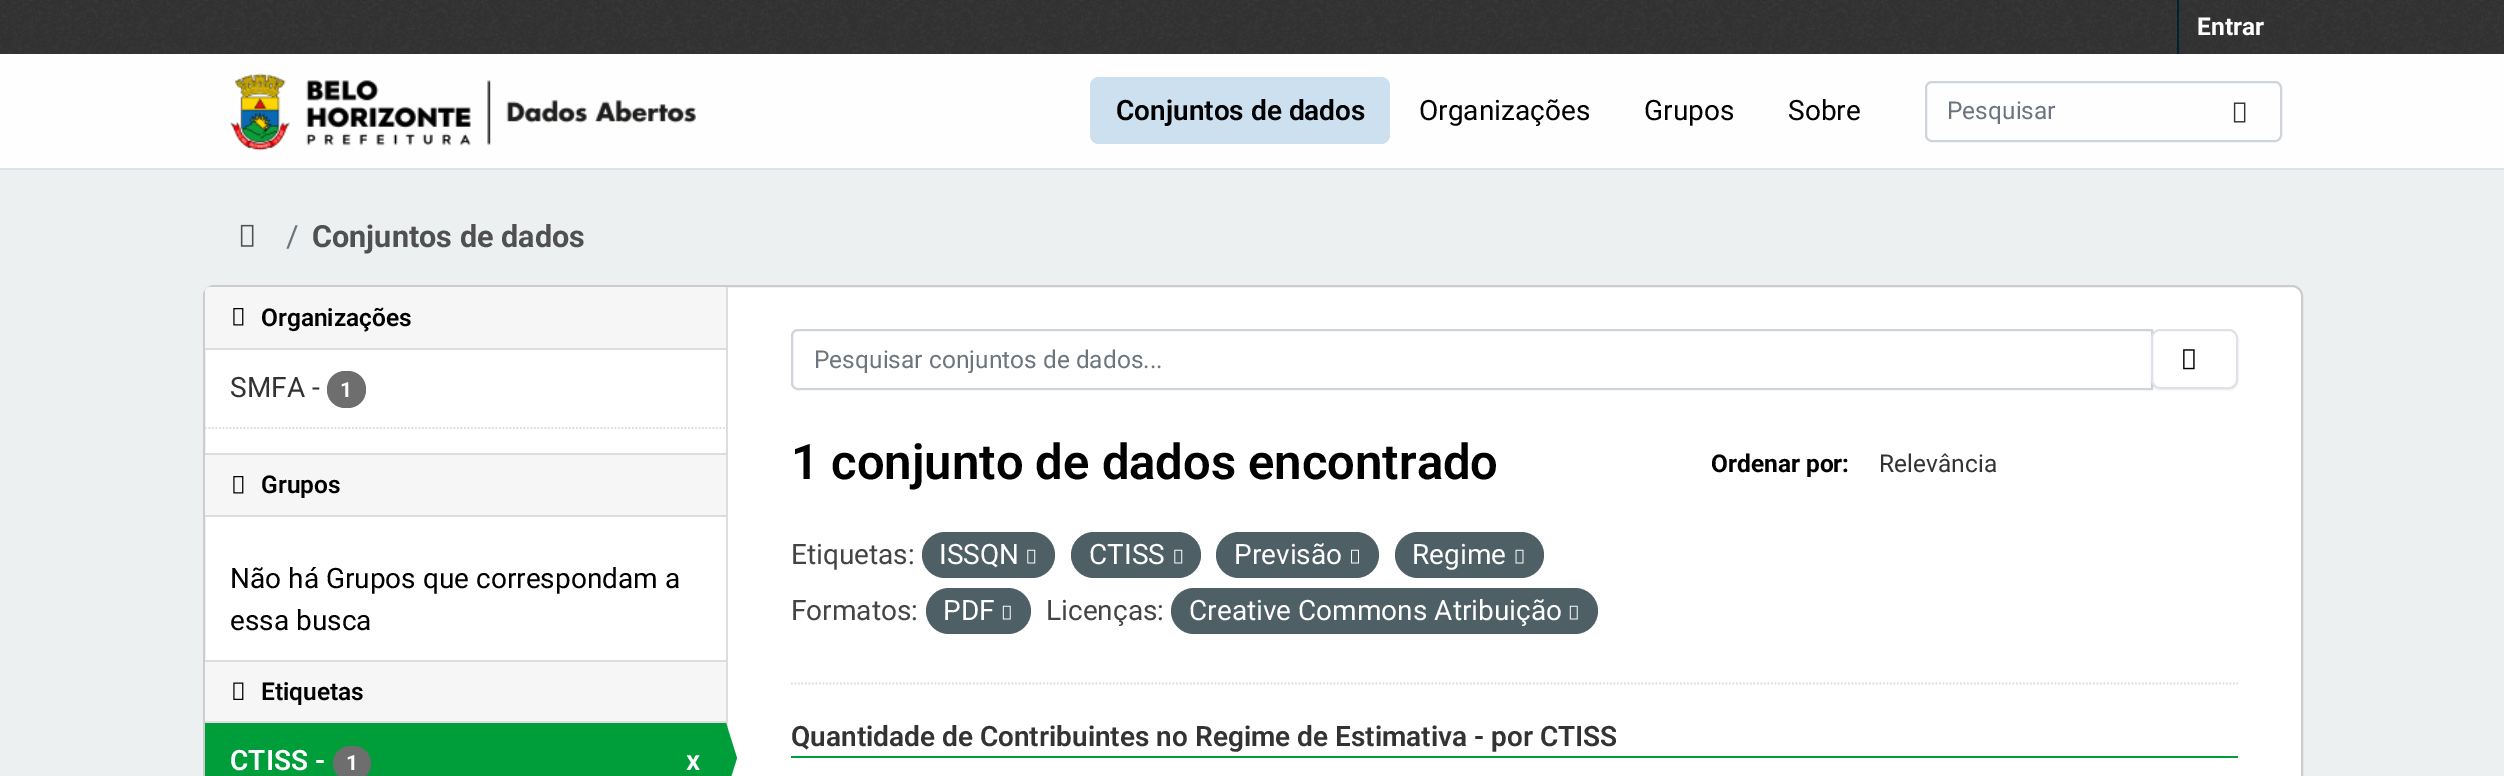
%!PS
<< /PageSize [2504 776] /PageUsesTransparency true >> setpagedevice
/m/moveto load def
/l/rlineto load def
/c/rcurveto load def
/z/closepath load def
/f/fill load def
/s/stroke load def
/q/gsave load def
/Q_/grestore load def
/w/setlinewidth load def
/C { dup -16 bitshift 255 div exch dup -8 bitshift 255 and 255 div exch 255 and 255 div setrgbcolor } def
/F { [ exch dup neg 0 0 3 -1 roll 0 0 ] selectfont } def
/T { moveto show } def
/R { rectfill } def
/A { dup .setfillconstantalpha .setstrokeconstantalpha } def
/Q { 5 dict begin { /r /h /w /y /x } { exch def } forall
  x r add y moveto x w add y 2 copy h add r arct x w add y h add x 1 index r arct
  x y h add x y r arct x y 2 copy exch w add exch r arct closepath end } def
/S { 12 dict begin { /a /b /q /h /w /y /x } { exch def } forall gsave /was 0 def
  9 -2 -9 { dup b mul 4 div /e exch def 1 sub .425 mul 2.718 exch exp 1 add a .99 .min exch div /now exch def
    1 1 now sub 1 was sub div sub A /was now def
    w h .min e 2 mul add 0 gt { x e sub y e sub w e 2 mul add h e 2 mul add
      q e add b .6 mul add w h .min 2 div e add .min 0 .max Q fill } if } for grestore end } def
/I { 5 dict begin { /h /w /y /x /name } { exch def } forall
  gsave x y translate w h scale
  w h 8 [w 0 0 h 0 0] name (r) file false 3 colorimage grestore end } def
0 .pushpdf14devicefilter
0 776 translate 1 -1 scale
4 setmiterlimit
16#ECF0F1 C
0 0 2504 776 R
16#333333 C
0 0 2504 54 R
(1.rgb) 0 0 2504 54 I
16#00232E C
2177 0 2 54 R
/Roboto-Bold 24.5 F
16#FFFFFF C
(Entrar) 2197 35 T
16#FEFEFE C
0 54 2504 114 R
16#DEE2E6 C
0 168 2504 2 R
(2.rgb) 229 73 467 78 I
16#CCE0EF C
1090 77 300 67 9 Q f
/Roboto-SemiBold 28 F
16#000000 C
(Conjuntos de dados) 1116 120 T
/Roboto-Regular 28 F
(Organizações) 1419 120 T
(Grupos) 1644 120 T
(Sobre) 1788 120 T
16#CED4DA C
2 w
1926 82 355 59 6 Q s
/Roboto-Regular 24.5 F
16#6C757D C
(Pesquisar) 1947 119 T
(3.rgb) 2233 102 13 21 I
(4.rgb) 240 224 14 23 I
/Roboto-Regular 30.6 F
(/) 286 247 T
/Roboto-Bold 30.6 F
16#505050 C
(Conjuntos de dados) 312 247 T
16#FFFFFF C
204 286 2098 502 10 Q q f Q_
16#CCCCCC C
s
16#F6F6F6 C
210 287 m 516 0 l 0 63 l -521 0 l 0 -58 l 0 -3 2 -5 5 -5 c z f
16#DDDDDD C
205 348 521 2 R
(5.rgb) 233 308 11 18 I
/Roboto-SemiBold 24.5 F
16#000000 C
(Organizações) 261 326 T
/Roboto-Regular 28 F
16#333333 C
(SMFA -) 230 397 T
16#6E6E6E C
327 371 39 37 18 Q f
/Roboto-Bold 21 F
16#FFFFFF C
(1) 340 397 T
16#DDDDDD C
1.8 w
[1.75 1.75] 0 setdash
205 428 m 521 0 l s
16#F6F6F6 C
205 455 521 60 R
16#DDDDDD C
205 453 521 2 R
205 515 521 2 R
(5.rgb) 233 476 11 18 I
/Roboto-SemiBold 24.5 F
16#000000 C
(Grupos) 261 493 T
/Roboto-Regular 28 F
(Não há Grupos que correspondam a) 230 588 T
(essa busca) 230 630 T
16#F6F6F6 C
205 662 521 59 R
16#DDDDDD C
205 660 521 2 R
205 721 521 2 R
(6.rgb) 233 682 11 18 I
/Roboto-SemiBold 24.5 F
16#000000 C
(Etiquetas) 261 700 T
16#009E3B C
205 723 521 53 R
/Roboto-SemiBold 28 F
16#FFFFFF C
(CTISS -) 230 770 T
16#6E6E6E C
333 746 38 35 17.5 Q f
/Roboto-Bold 21 F
16#FFFFFF C
(1) 346 770 T
/Roboto-SemiBold 28 F
(x) 686 770 T
16#DDDDDD C
726 287 2 443 R
16#009E3B C
726 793 m 0 -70 l 11 35 l z f
16#DDDDDD C
791 683.5 m 1447 0 l s
16#CED4DA C
2 w
[] 0 setdash
798 330 m 1354 0 l 0 59 l -1354 0 l -3.5 0 -6 -2.5 -6 -6 c 0 -47 l 0 -3.5 2.5 -6 6 -6 c z s
q
814 345 1316 28 rectclip
/Roboto-Regular 24.5 F
16#6C757D C
(Pesquisar conjuntos de dados...) 814 368 T
Q_
16#000000 C
2151 331 87 59 9 1 .07 S
16#FFFFFF C
2152 330 85 58 8 Q q f Q_
16#DEE2E6 C
s
(7.rgb) 2183 349 12 21 I
/Roboto-SemiBold 49 F
16#000000 C
(1 conjunto de dados encontrado) 791 479 T
/Roboto-Bold 24.5 F
(Ordenar por:) 1711 472 T
/Roboto-Regular 24.5 F
16#333333 C
(Relevância) 1879 472 T
/Roboto-Regular 28 F
16#444444 C
(Etiquetas:) 791 564 T
16#4E5F65 C
922 532 133 46 23 Q f
16#FFFFFF C
(ISSQN) 939 564 T
(8.rgb) 1027 549 9 15 I
16#4E5F65 C
1071 532 130 46 23 Q f
16#FFFFFF C
(CTISS) 1089 564 T
(8.rgb) 1174 549 9 15 I
16#4E5F65 C
1216 532 163 46 23 Q f
16#FFFFFF C
(Previsão) 1234 564 T
(9.rgb) 1351 549 8 15 I
16#4E5F65 C
1395 532 149 46 23 Q f
16#FFFFFF C
(Regime) 1412 564 T
(10.rgb) 1515 549 9 15 I
16#444444 C
(Formatos:) 791 620 T
16#4E5F65 C
926 588 105 46 23 Q f
16#FFFFFF C
(PDF) 943 620 T
(11.rgb) 1002 605 9 15 I
16#444444 C
(Licenças:) 1046 620 T
16#4E5F65 C
1171 588 427 46 23 Q f
16#FFFFFF C
(Creative Commons Atribuição) 1189 620 T
(11.rgb) 1569 605 9 15 I
16#009E3B C
791 756 1447 2 R
/Roboto-SemiBold 28 F
16#333333 C
(Quantidade de Contribuintes no Regime de Estimativa - por CTISS) 791 746 T
.poppdf14devicefilter showpage
